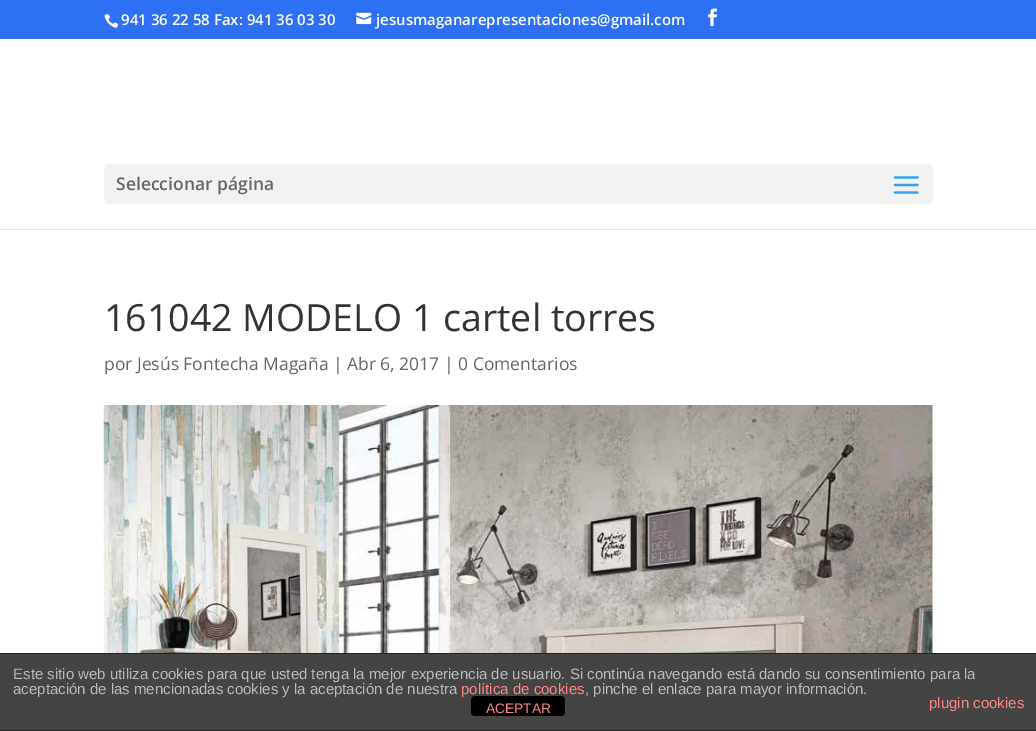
%!PS
<< /PageSize [1036 731] >> setpagedevice
/f/fill load def
/C { dup -16 bitshift 255 div exch dup -8 bitshift 255 and 255 div exch 255 and 255 div setrgbcolor } def
/F { [ exch dup neg 0 0 3 -1 roll 0 0 ] selectfont } def
/T { moveto show } def
/R { rectfill } def
/Q { 5 dict begin { /r /h /w /y /x } { exch def } forall
  x r add y moveto x w add y 2 copy h add r arct x w add y h add x 1 index r arct
  x y h add x y r arct x y 2 copy exch w add exch r arct closepath end } def
/I { 5 dict begin { /h /w /y /x /name } { exch def } forall
  gsave x y translate w h scale
  w h 8 [w 0 0 h 0 0] name (r) file false 3 colorimage grestore end } def
0 731 translate 1 -1 scale
4 setmiterlimit
16#FFFFFF C
0 0 1036 731 R
16#2E70F4 C
0 0 1036 39 R
(1.rgb) 104 14 15 14 I
/OpenSans-SemiBold 15 F
16#FFFFFF C
(941 36 22 58 Fax: 941 36 03 30) 121 25 T
(2.rgb) 356 12 16 13 I
(jesusmaganarepresentaciones@gmail.com) 376 25 T
(3.rgb) 708 8 9 19 I
16#E6E6E6 C
0 229 1036 1 R
16#F2F2F2 C
104 164 829 40 6 Q f
/OpenSans-SemiBold 17.5 F
16#666666 C
(Seleccionar página) 116 190 T
(4.rgb) 893 176 26 18 I
/OpenSans-Regular 37.5 F
16#333333 C
(161042 MODELO 1 cartel torres) 104 331 T
/OpenSans-Regular 17.5 F
16#666666 C
(por Jesús Fontecha Magaña | Abr 6, 2017 | 0 Comentarios) 104 370 T
(5.rgb) 103 405 830 248 I
16#444444 C
0 654 1036 76 R
16#222222 C
0 653 1036 1 R
0 730 1036 1 R
/LiberationSans-Regular 15 F
16#BBBBBB C
(Este sitio web utiliza cookies para que usted tenga la mejor experiencia de usuario. Si continúa navegando está dando su consentimiento para la) 13 679 T
(aceptación de las mencionadas cookies y la aceptación de nuestra) 13 694 T
16#000000 C
471 696 94 20 4 Q f
16#FF8888 C
(política de cookies) 461 694 T
16#BBBBBB C
(, pinche el enlace para mayor información.) 585 694 T
16#FF8888 C
(plugin cookies) 929 708 T
/LiberationSans-Regular 13.75 F
(ACEPTAR) 486 713 T
showpage
